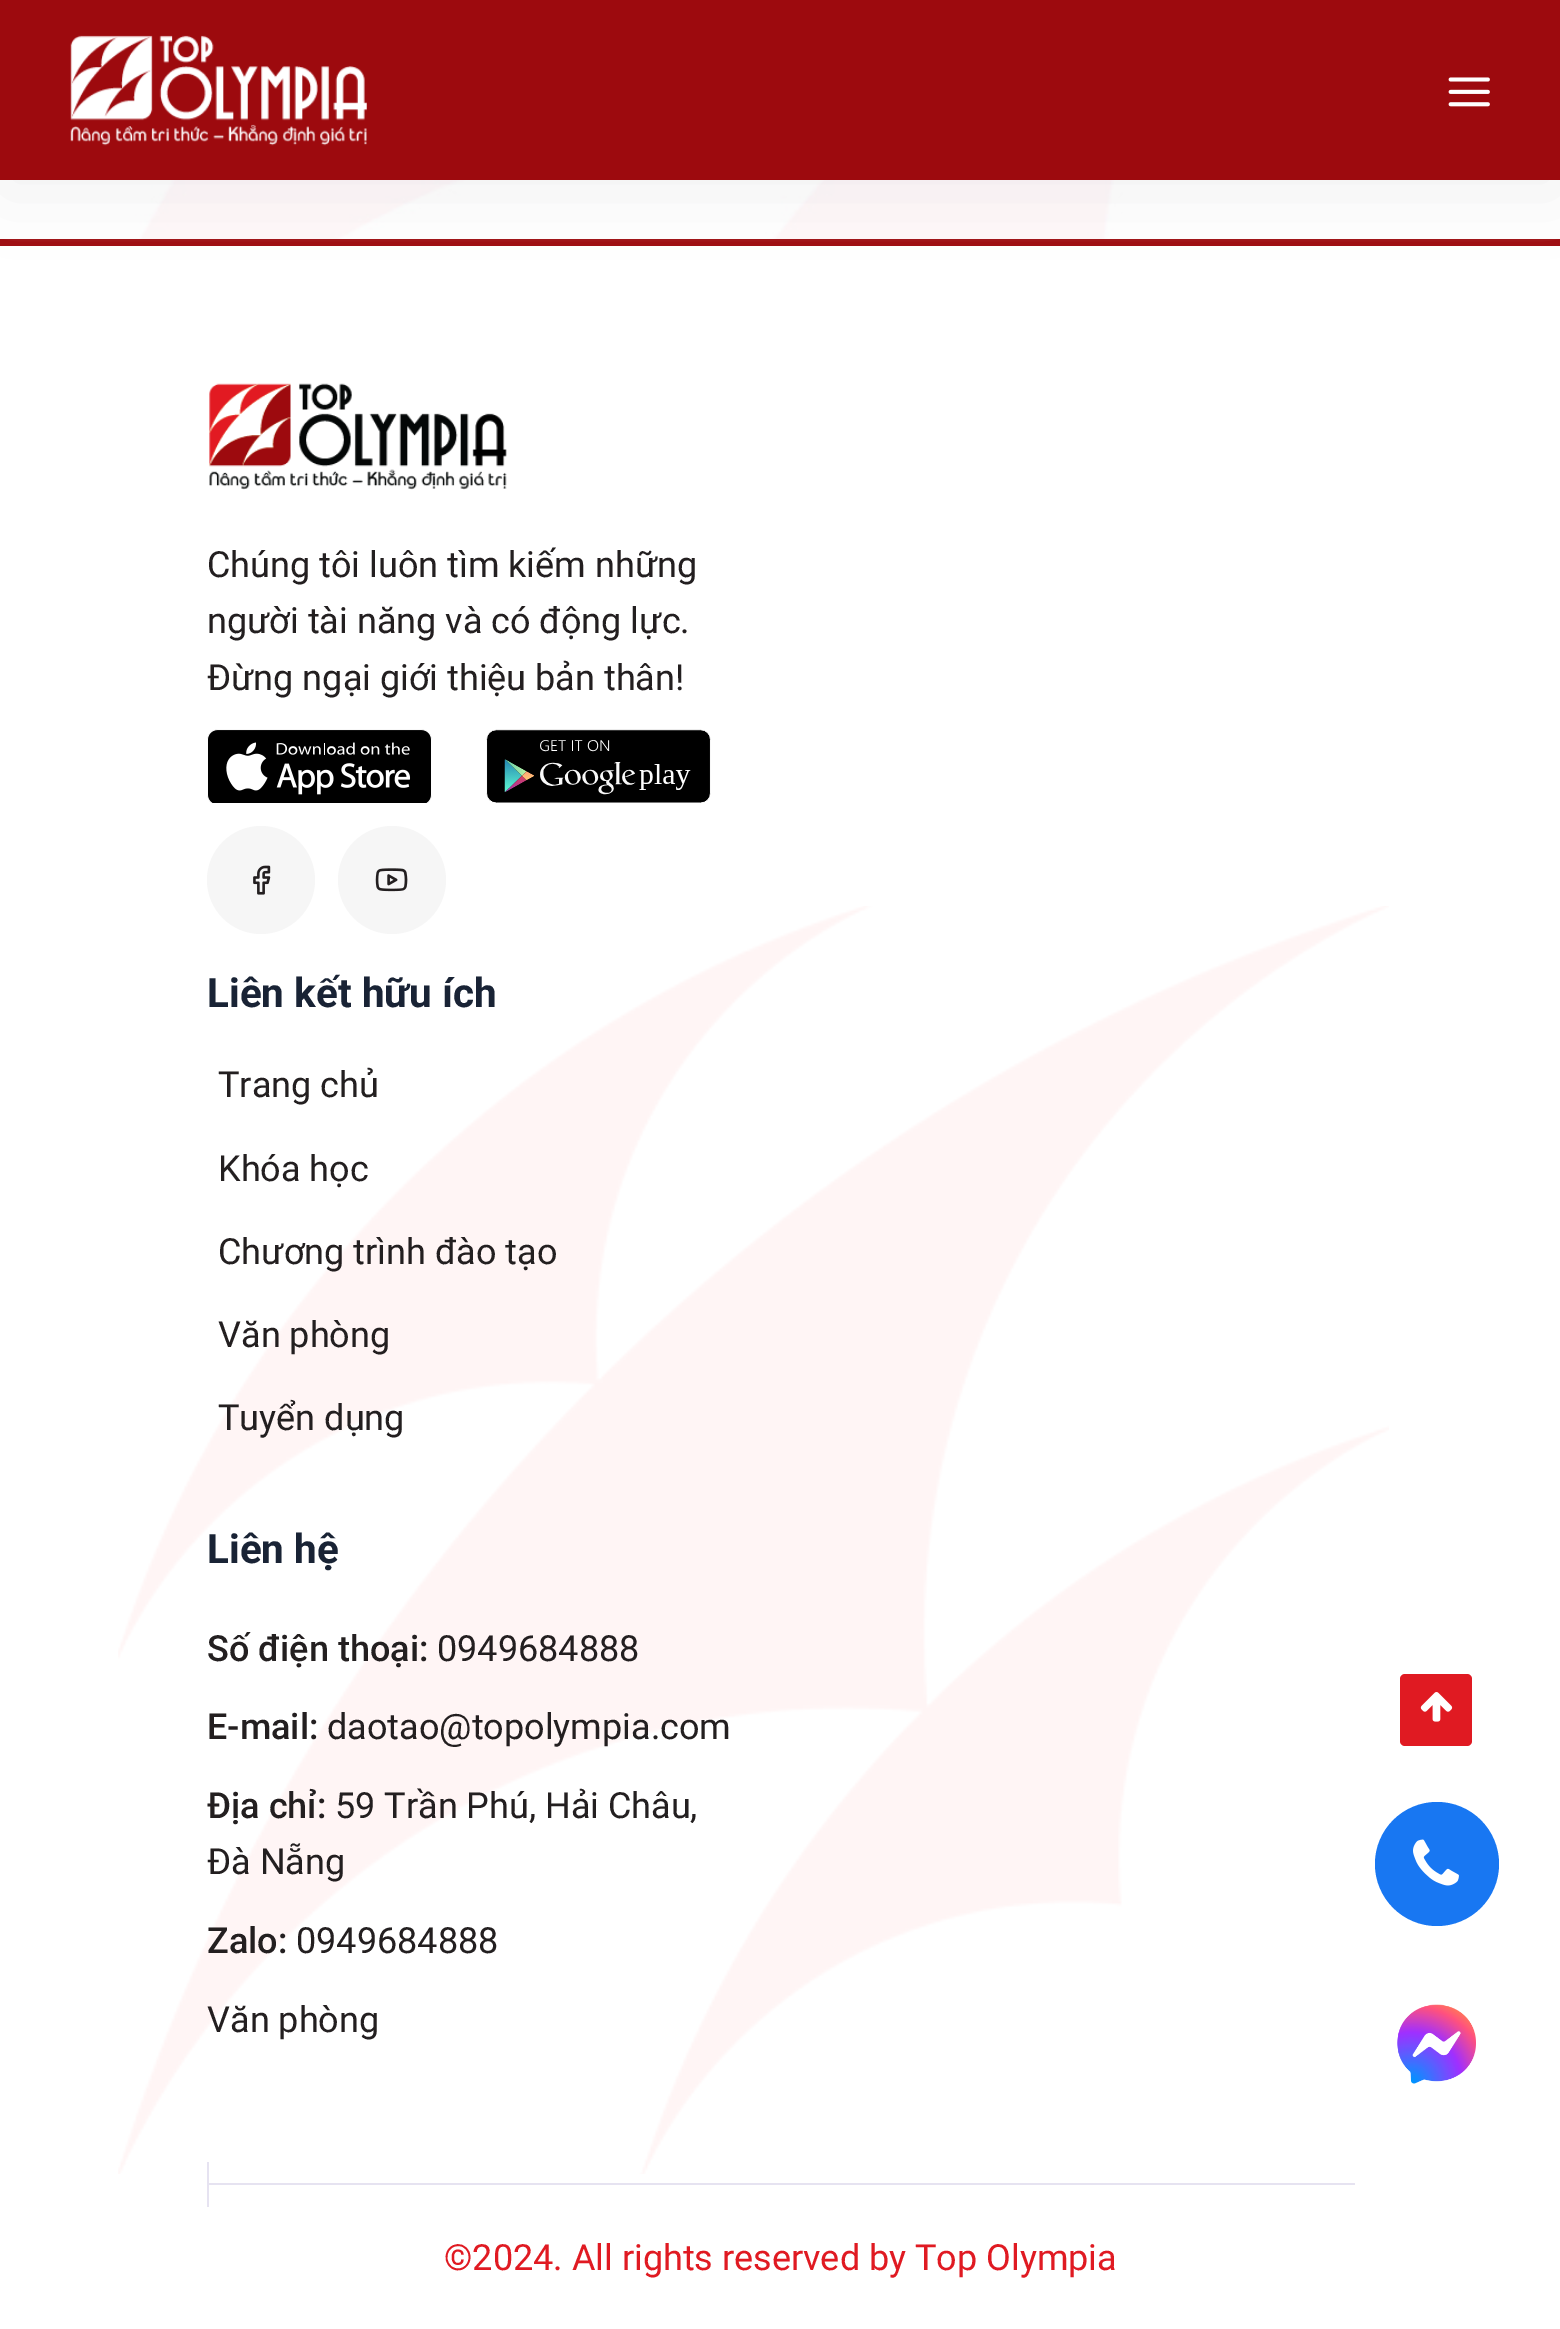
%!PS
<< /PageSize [1560 2329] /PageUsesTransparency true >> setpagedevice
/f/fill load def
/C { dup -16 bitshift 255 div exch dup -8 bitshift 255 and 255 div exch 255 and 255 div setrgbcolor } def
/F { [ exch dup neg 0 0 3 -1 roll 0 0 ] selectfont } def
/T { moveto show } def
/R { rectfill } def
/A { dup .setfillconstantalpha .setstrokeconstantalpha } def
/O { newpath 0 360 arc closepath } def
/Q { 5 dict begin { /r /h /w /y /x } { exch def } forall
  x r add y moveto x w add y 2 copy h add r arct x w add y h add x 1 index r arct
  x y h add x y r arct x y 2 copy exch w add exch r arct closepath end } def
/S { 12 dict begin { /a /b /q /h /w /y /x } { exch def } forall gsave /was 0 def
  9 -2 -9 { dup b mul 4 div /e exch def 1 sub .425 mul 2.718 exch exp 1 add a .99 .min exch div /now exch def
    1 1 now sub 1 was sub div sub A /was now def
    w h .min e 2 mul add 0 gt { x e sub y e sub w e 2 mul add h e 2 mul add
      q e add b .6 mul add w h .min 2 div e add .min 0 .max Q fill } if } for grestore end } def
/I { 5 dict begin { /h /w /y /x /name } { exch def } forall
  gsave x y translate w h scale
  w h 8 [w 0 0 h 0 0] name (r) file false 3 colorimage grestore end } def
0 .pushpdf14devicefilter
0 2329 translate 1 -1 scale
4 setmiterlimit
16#FFFFFF C
0 0 1560 2329 R
(1.rgb) 0 180 1410 59 I
16#9D0A0E C
0 239 1560 7 R
16#D7D8DE C
0 14 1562 180 0 38 .41 S
16#9D0A0E C
0 0 1560 180 R
(2.rgb) 70 35 297 111 I
(3.rgb) 1448 77 42 30 I
(4.rgb) 118 906 1271 1268 I
(5.rgb) 209 383 298 107 I
/Roboto-Regular 36 F
16#231F20 C
(Chúng tôi luôn tìm kiếm những) 207 577 T
(người tài năng và có động lực.) 207 633 T
(Đừng ngại giới thiệu bản thân!) 207 690 T
(6.rgb) 207 729 225 74 I
(7.rgb) 486 729 225 74 I
16#F6F6F6 C
261 880 54 O f
(8.rgb) 253 865 18 30 I
392 880 54 O f
(9.rgb) 375 868 33 24 I
/Roboto-Bold 40.5 F
16#192335 C
(Liên kết hữu ích) 207 1007 T
/Roboto-Regular 36 F
16#231F20 C
(Trang chủ) 218 1097 T
(Khóa học) 218 1181 T
(Chương trình đào tạo) 218 1264 T
(Văn phòng) 218 1347 T
(Tuyển dụng) 218 1430 T
/Roboto-Bold 40.5 F
16#192335 C
(Liên hệ) 207 1563 T
/Roboto-Medium 36 F
16#231F20 C
(Số điện thoại:) 207 1661 T
/Roboto-Regular 36 F
(0949684888) 437 1661 T
/Roboto-Medium 36 F
(E-mail:) 207 1739 T
/Roboto-Regular 36 F
(daotao@topolympia.com) 327 1739 T
/Roboto-Medium 36 F
(Địa chỉ:) 207 1818 T
/Roboto-Regular 36 F
(59 Trần Phú, Hải Châu,) 335 1818 T
(Đà Nẵng) 207 1874 T
/Roboto-Medium 36 F
(Zalo:) 207 1953 T
/Roboto-Regular 36 F
(0949684888) 296 1953 T
(Văn phòng) 207 2032 T
16#E6E3F1 C
207 2183 1148 2 R
207 2162 2 45 R
16#E01A22 C
(©2024. All rights reserved by Top Olympia) 444 2270 T
1400 1674 72 72 5 Q f
(10.rgb) 1420 1692 33 30 I
16#1877F2 C
1437 1864 62 O f
(11.rgb) 1413 1839 46 47 I
(12.rgb) 1397 2004 79 80 I
.poppdf14devicefilter showpage
